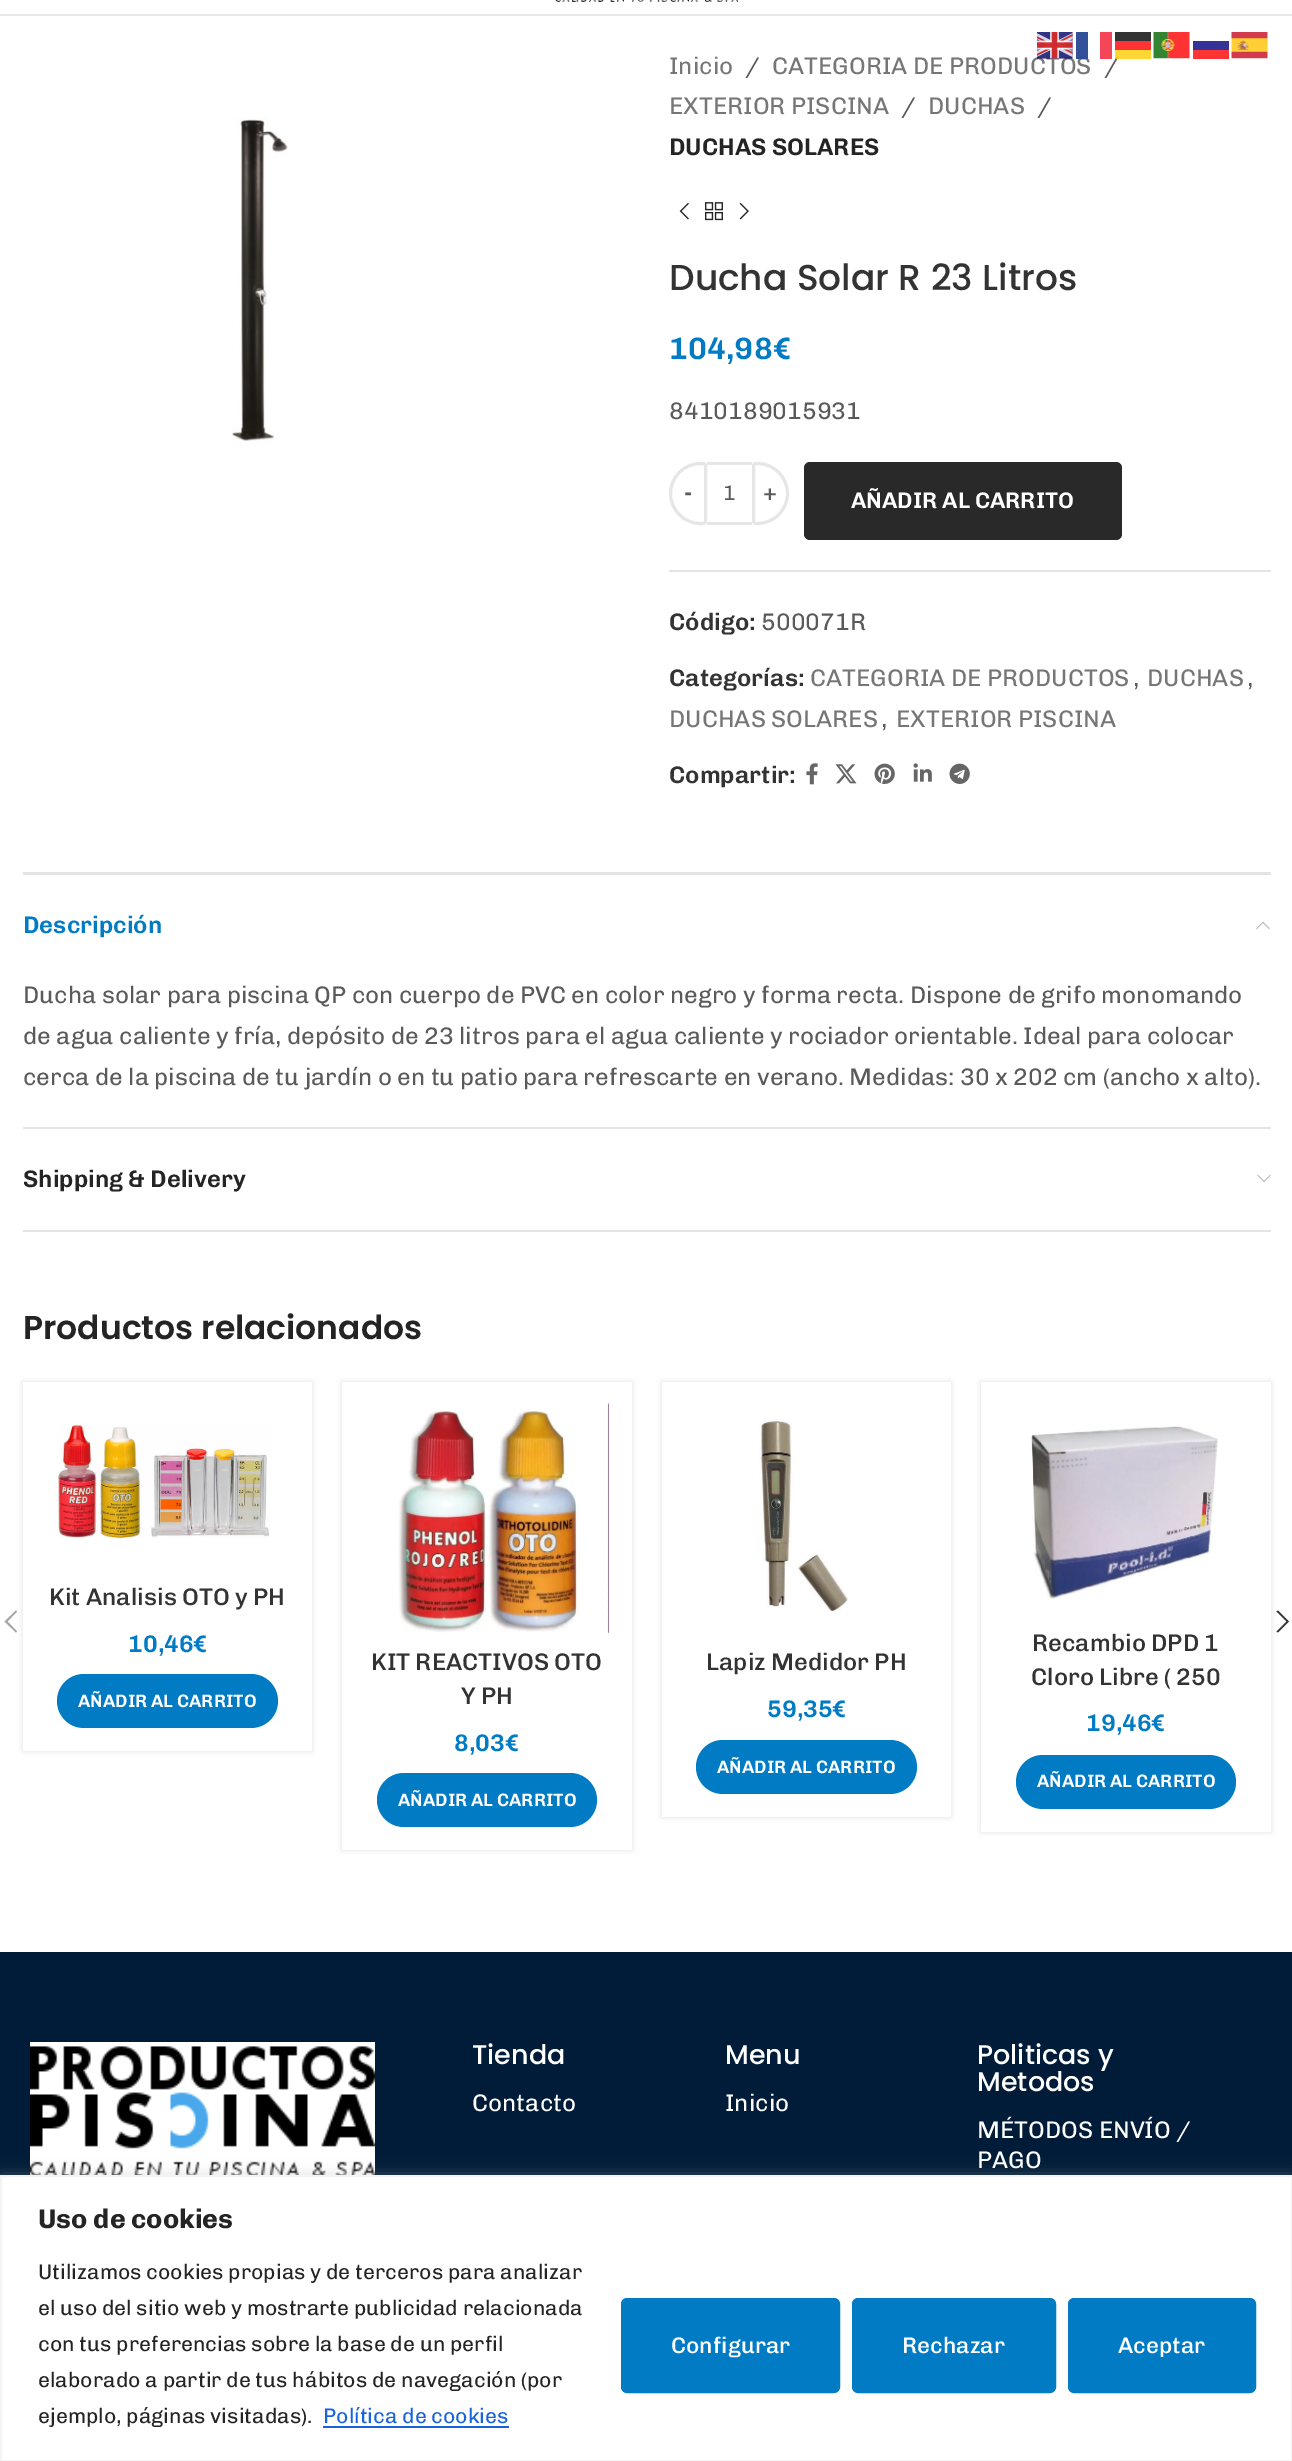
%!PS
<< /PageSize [1292 2461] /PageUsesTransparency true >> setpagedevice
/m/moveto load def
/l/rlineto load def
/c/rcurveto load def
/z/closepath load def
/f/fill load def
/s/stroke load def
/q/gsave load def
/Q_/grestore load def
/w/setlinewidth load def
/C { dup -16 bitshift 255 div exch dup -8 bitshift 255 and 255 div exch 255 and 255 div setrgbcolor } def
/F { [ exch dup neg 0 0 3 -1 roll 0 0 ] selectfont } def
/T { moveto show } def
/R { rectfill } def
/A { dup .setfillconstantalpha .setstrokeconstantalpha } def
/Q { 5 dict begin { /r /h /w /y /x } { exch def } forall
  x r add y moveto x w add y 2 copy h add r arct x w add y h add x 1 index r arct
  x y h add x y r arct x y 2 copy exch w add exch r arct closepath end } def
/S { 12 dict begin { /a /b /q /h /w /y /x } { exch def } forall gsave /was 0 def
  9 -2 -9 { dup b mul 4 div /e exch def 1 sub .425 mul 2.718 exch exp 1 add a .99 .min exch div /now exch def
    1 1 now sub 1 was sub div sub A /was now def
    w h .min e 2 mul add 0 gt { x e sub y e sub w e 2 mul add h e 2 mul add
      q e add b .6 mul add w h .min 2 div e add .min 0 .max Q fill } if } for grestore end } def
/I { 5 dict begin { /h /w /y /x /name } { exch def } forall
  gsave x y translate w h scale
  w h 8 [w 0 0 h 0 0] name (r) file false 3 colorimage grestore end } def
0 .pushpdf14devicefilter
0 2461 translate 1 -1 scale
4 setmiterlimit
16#FFFFFF C
0 0 1292 2461 R
/Chivo-Regular 24 F
16#767676 C
(CATEGORIA DE PRODUCTOS) 772 74 T
(1.rgb) 1037 32 36 27 I
0.8 A
16#FFFFFF C
1079 57 10 2 R
16#00267F C
1076 32 12 27 R
1 A
16#5A5A5A C
(/) 1104 74 T
16#F54659 C
1100 32 12 27 R
16#333333 C
1115 32 36 9 R
(2.rgb) 1153 32 37 27 I
(3.rgb) 1231 32 37 27 I
16#FF3333 C
1115 41 36 9 R
16#343498 C
1193 41 36 9 R
0.8 A
16#FFCC00 C
1115 50 36 9 R
1 A
16#FE3434 C
1193 50 36 9 R
16#E8E8E8 C
0 14 1292 2 R
(4.rgb) 555 0 183 2 I
(5.rgb) 231 116 57 325 I
16#767676 C
(Inicio) 669 74 T
16#5A5A5A C
(/) 745 74 T
16#767676 C
(EXTERIOR PISCINA) 669 114 T
16#5A5A5A C
(/) 901 114 T
16#767676 C
(DUCHAS) 928 114 T
16#5A5A5A C
(/) 1037 114 T
/Chivo-SemiBold 24 F
16#242424 C
(DUCHAS SOLARES) 669 155 T
(6.rgb) 679 202 10 18 I
(7.rgb) 705 202 18 19 I
(8.rgb) 739 202 10 18 I
/Poppins-Medium 36 F
16#333333 C
(Ducha Solar R 23 Litros) 669 290 T
/Chivo-SemiBold 31 F
16#007BC4 C
(104,98€) 669 359 T
/Chivo-Regular 24 F
16#5A5A5A C
(8410189015931) 669 419 T
16#E6E6E6 C
3 w
700.5 463.5 m 2.5 0 l 1.5 0 2.5 1 2.5 2.5 c 0 55 l 0 1.5 -1 2.5 -2.5 2.5 c -2.5 0 l -16.5 0 -30 -13.5 -30 -30 c 0 -16.5 13.5 -30 30 -30 c z s
/Chivo-SemiBold 22.5 F
16#5A5A5A C
(-) 684 500 T
16#E6E6E6 C
707 462 45 3 R
707 522 45 3 R
/Chivo-Regular 21 F
16#5A5A5A C
(1) 723 500 T
16#E6E6E6 C
756 463.5 m 1.5 0 l 16.5 0 30 13.5 30 30 c 0 16.5 -13.5 30 -30 30 c -1.5 0 l -1.5 0 -2.5 -1 -2.5 -2.5 c 0 -55 l 0 -1.5 1 -2.5 2.5 -2.5 c z s
/Chivo-SemiBold 22.5 F
16#5A5A5A C
(+) 763 500 T
16#292929 C
804 462 318 78 6 Q f
16#FFFFFF C
(AÑADIR AL CARRITO) 851 508 T
16#E4E4E4 C
669 570 602 2 R
/Chivo-SemiBold 24 F
16#333333 C
(Código:) 669 630 T
/Chivo-Regular 24 F
16#5A5A5A C
(500071R) 761 630 T
/Chivo-SemiBold 24 F
16#333333 C
(Categorías:) 669 686 T
/Chivo-Regular 24 F
16#767676 C
(CATEGORIA DE PRODUCTOS) 810 686 T
16#5A5A5A C
(,) 1133 686 T
16#767676 C
(DUCHAS) 1147 686 T
16#5A5A5A C
(,) 1247 686 T
16#767676 C
(DUCHAS SOLARES) 669 727 T
16#5A5A5A C
(,) 881 727 T
16#767676 C
(EXTERIOR PISCINA) 896 727 T
/Chivo-SemiBold 24 F
16#333333 C
(Compartir:) 669 783 T
(9.rgb) 806 763 12 22 I
(10.rgb) 835 764 22 20 I
(11.rgb) 874 763 21 21 I
(12.rgb) 913 763 19 19 I
(13.rgb) 949 763 21 21 I
16#E4E4E4 C
23 872 1248 3 R
23 1127 1248 2 R
16#007BC4 C
(Descripción) 23 933 T
(14.rgb) 1256 921 14 9 I
/Chivo-Regular 24 F
16#5A5A5A C
(Ducha solar para piscina QP con cuerpo de PVC en color negro y forma recta. Dispone de grifo monomando) 23 1003 T
(de agua caliente y fría, depósito de 23 litros para el agua caliente y rociador orientable. Ideal para colocar) 23 1044 T
(cerca de la piscina de tu jardín o en tu patio para refrescarte en verano. Medidas: 30 x 202 cm \(ancho x alto\).) 23 1085 T
16#E4E4E4 C
23 1230 1248 2 R
/Chivo-SemiBold 24 F
16#242424 C
(Shipping & Delivery) 23 1187 T
(15.rgb) 1257 1174 14 9 I
/Poppins-SemiBold 33 F
(Productos relacionados) 23 1339 T
q
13 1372 m 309 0 l 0 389 l -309 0 l z 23 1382 m 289 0 l 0 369 l -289 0 l z eoclip newpath
16#000000 C
23 1382 289 369 0 3 .12 S
Q_
(16.rgb) 58 1423 212 115 I
/Chivo-Medium 24 F
16#333333 C
(Kit Analisis OTO y PH) 49 1605 T
/Chivo-SemiBold 24 F
16#007BC4 C
(10,46€) 128 1652 T
57 1674 221 54 27 Q f
/Chivo-SemiBold 18 F
16#FFFFFF C
(AÑADIR AL CARRITO) 78 1707 T
q
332 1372 m 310 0 l 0 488 l -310 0 l z 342 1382 m 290 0 l 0 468 l -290 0 l z eoclip newpath
16#000000 C
342 1382 290 468 0 3 .12 S
Q_
(17.rgb) 398 1403 211 230 I
/Chivo-Medium 24 F
16#333333 C
(KIT REACTIVOS OTO) 371 1670 T
(Y PH) 461 1704 T
/Chivo-SemiBold 24 F
16#007BC4 C
(8,03€) 454 1751 T
377 1773 220 54 27 Q f
/Chivo-SemiBold 18 F
16#FFFFFF C
(AÑADIR AL CARRITO) 398 1806 T
q
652 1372 m 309 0 l 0 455 l -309 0 l z 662 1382 m 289 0 l 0 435 l -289 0 l z eoclip newpath
16#000000 C
662 1382 289 435 0 3 .12 S
Q_
(18.rgb) 759 1419 89 193 I
/Chivo-Medium 24 F
16#333333 C
(Lapiz Medidor PH) 706 1670 T
/Chivo-SemiBold 24 F
16#007BC4 C
(59,35€) 767 1717 T
696 1740 221 54 27 Q f
/Chivo-SemiBold 18 F
16#FFFFFF C
(AÑADIR AL CARRITO) 717 1773 T
q
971 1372 m 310 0 l 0 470 l -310 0 l z 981 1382 m 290 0 l 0 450 l -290 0 l z eoclip newpath
16#000000 C
981 1382 290 450 0 3 .12 S
Q_
(19.rgb) 1031 1426 187 173 I
/Chivo-Medium 24 F
16#333333 C
(Recambio DPD 1) 1032 1651 T
(Cloro Libre \( 250) 1031 1685 T
/Chivo-SemiBold 24 F
16#007BC4 C
(19,46€) 1086 1731 T
1016 1755 220 54 27 Q f
/Chivo-SemiBold 18 F
16#FFFFFF C
(AÑADIR AL CARRITO) 1037 1787 T
16#A5A5A5 C
17 1611.5 m -1 -1 l -11.5 11 l 11.5 11 l 1 -1 l -9.5 -10 l z f
16#333333 C
1276.5 1611.5 m 10 10 l -10 10 l 1.5 1 l 11 -11 l -11 -11 l z f
16#001C38 C
0 1952 1292 223 R
16#FFFFFF C
30 2042 345 133 R
(20.rgb) 30 2046 345 129 I
/Poppins-Medium 27 F
(Tienda) 472 2064 T
/Chivo-Regular 24 F
(Contacto) 472 2111 T
/Poppins-Medium 27 F
(Menu) 725 2064 T
/Chivo-Regular 24 F
(Inicio) 725 2111 T
/Poppins-Medium 27 F
(Politicas y) 977 2064 T
(Metodos) 977 2091 T
/Chivo-Regular 24 F
(MÉTODOS ENVÍO /) 977 2138 T
(PAGO) 977 2168 T
16#ACABAB C
0 2174 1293 286 0 7.5 .3 S
16#FFFFFF C
1 2176 m 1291 0 l 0 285 l -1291 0 l z q f Q_
16#F4F4F4 C
2 w
s
/Chivo-Bold 27 F
16#242424 C
(Uso de cookies) 38 2228 T
/Chivo-Regular 21 F
(Utilizamos cookies propias y de terceros para analizar) 38 2279 T
(el uso del sitio web y mostrarte publicidad relacionada) 38 2315 T
(con tus preferencias sobre la base de un perfil) 38 2351 T
(elaborado a partir de tus hábitos de navegación \(por) 38 2387 T
(ejemplo, páginas visitadas\).) 38 2423 T
16#1863DC C
(Política de cookies) 323 2423 T
323 2426 186 2 R
16#007BC4 C
622.5 2299.5 216 92 4.5 Q q f Q_
3 w
s
/Chivo-Medium 22.5 F
16#FFFFFF C
(Configurar) 671 2353 T
16#007BC4 C
853.5 2299.5 201 92 4.5 Q q f Q_
s
16#FFFFFF C
(Rechazar) 902 2353 T
16#007BC4 C
1069.5 2299.5 185 92 4.5 Q q f Q_
s
16#FFFFFF C
(Aceptar) 1118 2353 T
.poppdf14devicefilter showpage
